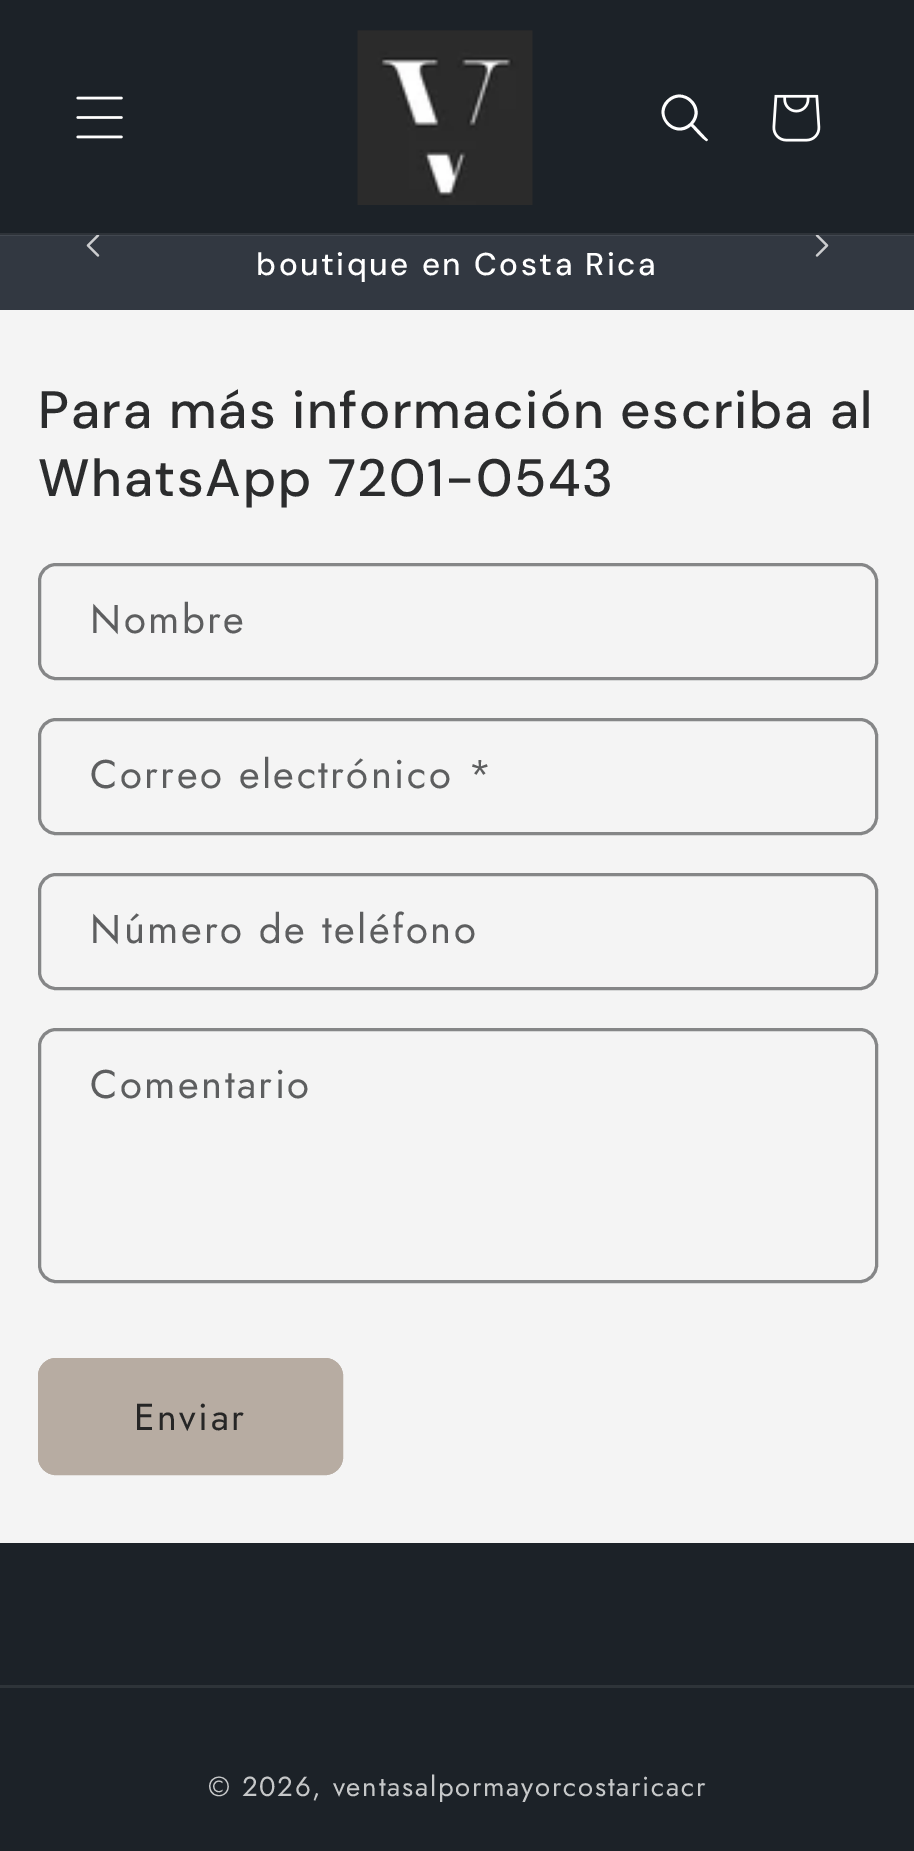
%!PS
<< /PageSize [914 1851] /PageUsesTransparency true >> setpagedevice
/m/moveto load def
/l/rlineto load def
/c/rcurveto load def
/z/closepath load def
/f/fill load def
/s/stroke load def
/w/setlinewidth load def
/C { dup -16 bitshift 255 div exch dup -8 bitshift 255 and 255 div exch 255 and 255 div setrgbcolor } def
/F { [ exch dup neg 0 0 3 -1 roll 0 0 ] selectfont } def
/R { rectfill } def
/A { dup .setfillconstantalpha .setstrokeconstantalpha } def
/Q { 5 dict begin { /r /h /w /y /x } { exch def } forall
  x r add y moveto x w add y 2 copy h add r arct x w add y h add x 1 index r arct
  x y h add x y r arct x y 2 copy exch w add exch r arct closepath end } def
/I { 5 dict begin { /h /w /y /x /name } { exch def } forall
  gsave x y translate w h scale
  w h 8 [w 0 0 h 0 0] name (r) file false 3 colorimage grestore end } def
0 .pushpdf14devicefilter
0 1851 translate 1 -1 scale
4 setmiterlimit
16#F4F4F4 C
0 0 914 1851 R
16#1C2228 C
0 0 914 235 R
16#323841 C
0 235 914 75 R
(4.rgb) 86 235 14 22 I
(5.rgb) 815 235 14 22 I
0.08 A
16#FFFFFF C
0 233 914 3 R
1 A
(1.rgb) 76 96 47 43 I
(2.rgb) 357 30 176 175 I
690 123 m -14 14 -35 -7 -21 -21 c 14 -14 35 7 21 21 c z 691 126 m -17 15 -40 -11 -24 -26 c 16 -16 41 7 26 24 c 15 16 l -1 1 l -2 1 -14 -13 -16 -15 c z eofill
(3.rgb) 772 94 49 48 I
/DMSans-Medium 31.5 F
256 275 m 2.5 0 (boutique en Costa Rica) ashow
/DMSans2-Medium 52.5 F
16#2B2C2D C
38 428 m 1.6 0 (Para más información escriba al) ashow
38 496 m 1.6 0 (WhatsApp 7201-0543) ashow
16#858687 C
3 w
39.5 564.5 837 114 16.5 Q s
/Jost-Regular 40 F
16#5D5E5F C
90 633 m 2.5 0 (Nombre) ashow
16#858687 C
39.5 719.5 837 114 16.5 Q s
16#5D5E5F C
90 788 m 2.5 0 (Correo electrónico *) ashow
16#858687 C
39.5 874.5 837 114 16.5 Q s
16#5D5E5F C
90 943 m 2.5 0 (Número de teléfono) ashow
16#858687 C
39.5 1029.5 837 252 16.5 Q s
16#5D5E5F C
90 1098 m 2.5 0 (Comentario) ashow
16#B7ACA2 C
38 1358 305 117 18 Q f
39.5 1359.5 302 114 16.5 Q s
/Jost-Regular 37.5 F
16#262626 C
134 1430 m 2.5 0 (Enviar) ashow
16#1C2228 C
0 1543 914 308 R
16#2E3439 C
0 1685 914 3 R
/Jost-Regular 27.5 F
16#C6C8C9 C
208 1796 m 1.75 0 (© 2026, ventasalpormayorcostaricacr) ashow
.poppdf14devicefilter showpage
